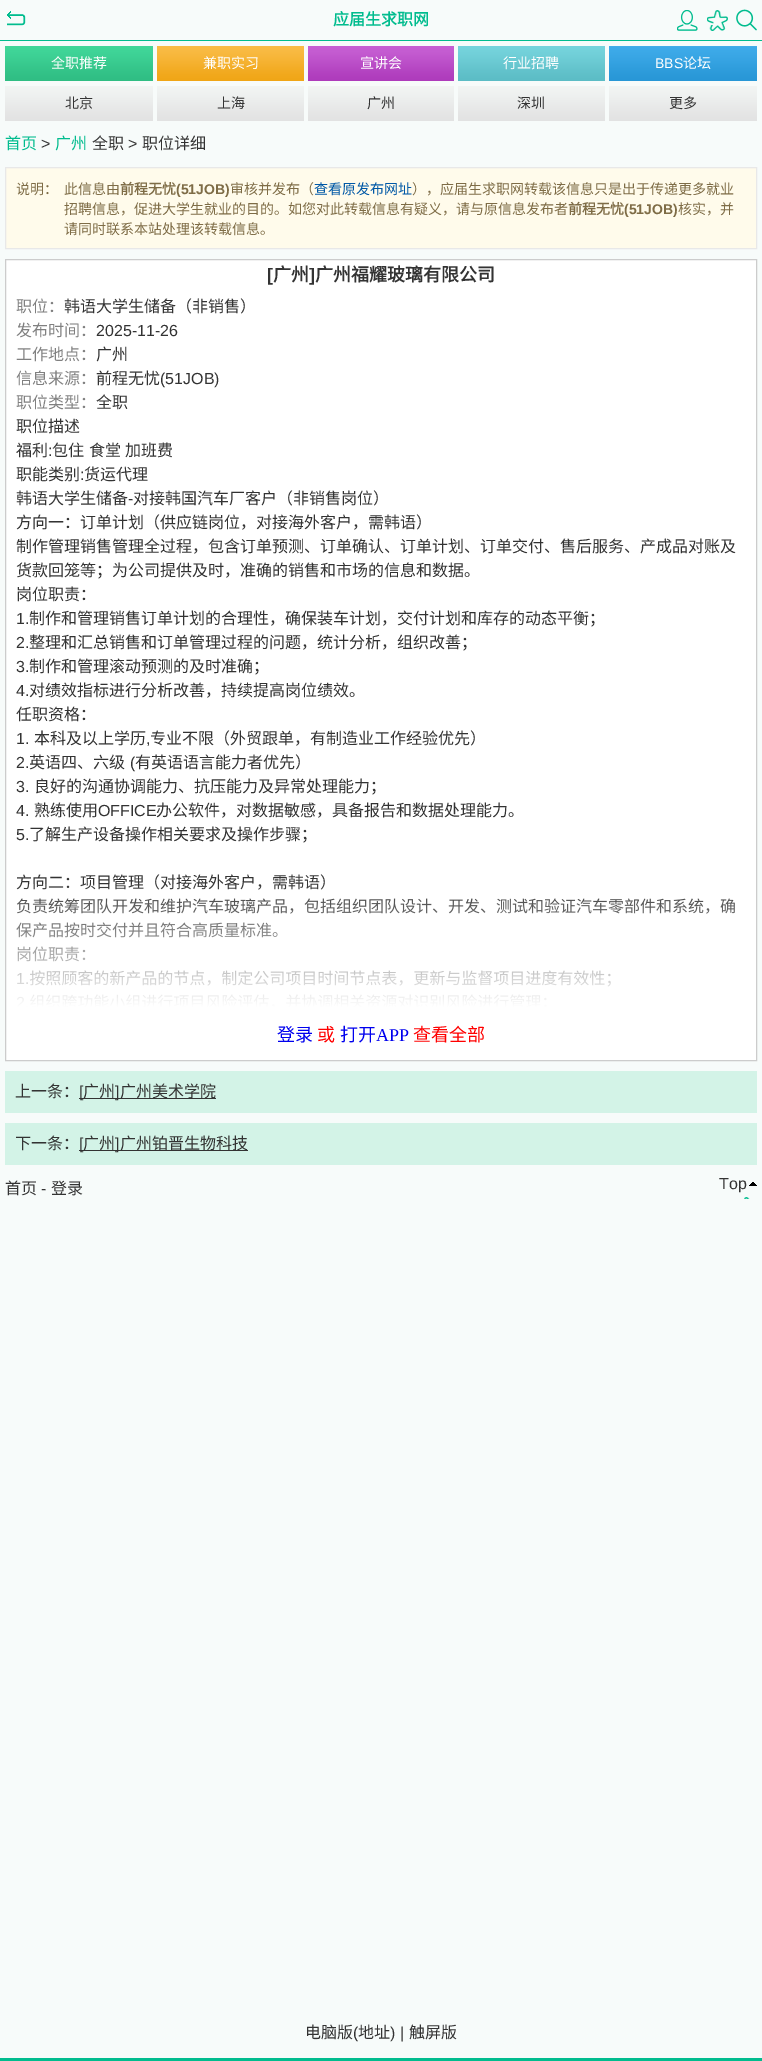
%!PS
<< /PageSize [762 2061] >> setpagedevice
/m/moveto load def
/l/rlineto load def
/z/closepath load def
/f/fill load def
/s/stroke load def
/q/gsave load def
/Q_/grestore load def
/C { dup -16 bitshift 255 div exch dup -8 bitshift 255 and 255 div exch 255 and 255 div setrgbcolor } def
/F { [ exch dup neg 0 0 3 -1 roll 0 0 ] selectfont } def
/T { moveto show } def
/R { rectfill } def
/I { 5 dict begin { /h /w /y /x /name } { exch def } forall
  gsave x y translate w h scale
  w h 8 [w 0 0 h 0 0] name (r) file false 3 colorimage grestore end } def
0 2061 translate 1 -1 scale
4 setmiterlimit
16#F7FBFA C
0 0 762 2061 R
16#01BC8E C
0 40 762 1 R
(1.rgb) 7 11 19 15 I
/NotoSansCJKSC-Bold 16 F
(应届生求职网) 333 25 T
(2.rgb) 677 10 21 21 I
(3.rgb) 707 10 21 21 I
(4.rgb) 736 9 21 22 I
(5.rgb) 5 46 148 35 I
/NotoSansCJKSC-Regular 14 F
16#FFFFFF C
(全职推荐) 51 68 T
(6.rgb) 157 46 147 35 I
(兼职实习) 203 68 T
(7.rgb) 308 46 146 35 I
(宣讲会) 360 68 T
(8.rgb) 458 46 147 35 I
(行业招聘) 503 68 T
(9.rgb) 609 46 148 35 I
/LiberationSans-Regular 14 F
(BBS) 655 68 T
/NotoSansCJKSC-Regular 14 F
(论坛) 683 68 T
(10.rgb) 5 86 148 35 I
16#333333 C
(北京) 65 108 T
(11.rgb) 157 86 147 35 I
(上海) 217 108 T
(12.rgb) 308 86 146 35 I
(广州) 367 108 T
(11.rgb) 458 86 147 35 I
(深圳) 517 108 T
(10.rgb) 609 86 148 35 I
(更多) 669 108 T
/NotoSansCJKSC-Regular 16 F
16#01BC8E C
(首页) 5 149 T
/LiberationSans-Regular 16 F
16#333333 C
(>) 41 149 T
/NotoSansCJKSC-Regular 16 F
16#01BC8E C
(广州) 55 149 T
16#333333 C
(全职) 92 149 T
/LiberationSans-Regular 16 F
(>) 128 149 T
/NotoSansCJKSC-Regular 16 F
(职位详细) 142 149 T
16#FFFBEB C
5.5 167.5 m 751 0 l 0 81 l -751 0 l z q f Q_
16#E8E8E8 C
s
/NotoSansCJKSC-Regular 14 F
16#7E6C46 C
(说明：) 16 194 T
(此信息由) 64 194 T
/NotoSansCJKSC-Bold 14 F
(前程无忧) 120 194 T
/LiberationSans-Bold 14 F
(\(51JOB\)) 176 194 T
/NotoSansCJKSC-Regular 14 F
(审核并发布（) 230 194 T
16#0058A6 C
(查看原发布网址) 314 194 T
16#7E6C46 C
(），应届生求职网转载该信息只是出于传递更多就业) 412 194 T
(招聘信息，促进大学生就业的目的。如您对此转载信息有疑义，请与原信息发布者) 64 214 T
/NotoSansCJKSC-Bold 14 F
(前程无忧) 568 214 T
/LiberationSans-Bold 14 F
(\(51JOB\)) 624 214 T
/NotoSansCJKSC-Regular 14 F
(核实，并) 678 214 T
(请同时联系本站处理该转载信息。) 64 234 T
16#FFFFFF C
5.5 259.5 m 751 0 l 0 801 l -751 0 l z q f Q_
16#CCCCCC C
s
/LiberationSans-Bold 18 F
16#333333 C
([) 267 281 T
/NotoSansCJKSC-Bold 18 F
(广州) 273 281 T
/LiberationSans-Bold 18 F
(]) 309 281 T
/NotoSansCJKSC-Bold 18 F
(广州福耀玻璃有限公司) 315 281 T
/NotoSansCJKSC-Regular 16 F
16#808080 C
(职位：) 16 312 T
16#333333 C
(韩语大学生储备（非销售）) 64 312 T
16#808080 C
(发布时间：) 16 336 T
/LiberationSans-Regular 16 F
16#333333 C
(2025-11-26) 96 336 T
/NotoSansCJKSC-Regular 16 F
16#808080 C
(工作地点：) 16 360 T
16#333333 C
(广州) 96 360 T
16#808080 C
(信息来源：) 16 384 T
16#333333 C
(前程无忧) 96 384 T
/LiberationSans-Regular 16 F
(\(51JOB\)) 160 384 T
/NotoSansCJKSC-Regular 16 F
16#808080 C
(职位类型：) 16 408 T
16#333333 C
(全职) 96 408 T
(职位描述) 16 432 T
(福利) 16 456 T
/LiberationSans-Regular 16 F
(:) 48 456 T
/NotoSansCJKSC-Regular 16 F
52 456 m 1 0 32 (包住 食堂 加班费) widthshow
(职能类别) 16 480 T
/LiberationSans-Regular 16 F
(:) 80 480 T
/NotoSansCJKSC-Regular 16 F
(货运代理) 84 480 T
(韩语大学生储备) 16 504 T
/LiberationSans-Regular 16 F
(-) 128 504 T
/NotoSansCJKSC-Regular 16 F
(对接韩国汽车厂客户（非销售岗位）) 133 504 T
(方向一：订单计划（供应链岗位，对接海外客户，需韩语）) 16 528 T
(制作管理销售管理全过程，包含订单预测、订单确认、订单计划、订单交付、售后服务、产成品对账及) 16 552 T
(货款回笼等；为公司提供及时，准确的销售和市场的信息和数据。) 16 576 T
(岗位职责：) 16 600 T
/LiberationSans-Regular 16 F
(1.) 16 624 T
/NotoSansCJKSC-Regular 16 F
(制作和管理销售订单计划的合理性，确保装车计划，交付计划和库存的动态平衡；) 29 624 T
/LiberationSans-Regular 16 F
(2.) 16 648 T
/NotoSansCJKSC-Regular 16 F
(整理和汇总销售和订单管理过程的问题，统计分析，组织改善；) 29 648 T
/LiberationSans-Regular 16 F
(3.) 16 672 T
/NotoSansCJKSC-Regular 16 F
(制作和管理滚动预测的及时准确；) 29 672 T
/LiberationSans-Regular 16 F
(4.) 16 696 T
/NotoSansCJKSC-Regular 16 F
(对绩效指标进行分析改善，持续提高岗位绩效。) 29 696 T
(任职资格：) 16 720 T
/LiberationSans-Regular 16 F
(1.) 16 744 T
/NotoSansCJKSC-Regular 16 F
(本科及以上学历) 34 744 T
(专业不限（外贸跟单，有制造业工作经验优先）) 150 744 T
/LiberationSans-Regular 16 F
(,) 146 744 T
(2.) 16 768 T
/NotoSansCJKSC-Regular 16 F
(英语四、六级) 29 768 T
/LiberationSans-Regular 16 F
(\() 130 768 T
/NotoSansCJKSC-Regular 16 F
(有英语语言能力者优先）) 135 768 T
/LiberationSans-Regular 16 F
(3.) 16 792 T
/NotoSansCJKSC-Regular 16 F
(良好的沟通协调能力、抗压能力及异常处理能力；) 34 792 T
/LiberationSans-Regular 16 F
(4.) 16 816 T
/NotoSansCJKSC-Regular 16 F
(熟练使用) 34 816 T
/LiberationSans-Regular 16 F
(OFFICE) 98 816 T
/NotoSansCJKSC-Regular 16 F
(办公软件，对数据敏感，具备报告和数据处理能力。) 156 816 T
/LiberationSans-Regular 16 F
(5.) 16 840 T
/NotoSansCJKSC-Regular 16 F
(了解生产设备操作相关要求及操作步骤；) 29 840 T
(方向二：项目管理（对接海外客户，需韩语）) 16 888 T
(负责统筹团队开发和维护汽车玻璃产品，包括组织团队设计、开发、测试和验证汽车零部件和系统，确) 16 912 T
(保产品按时交付并且符合高质量标准。) 16 936 T
(岗位职责：) 16 960 T
(13.rgb) 16 884 719 175 I
/NotoSansCJKSC-Regular 18 F
16#0000EE C
(登录) 277 1041 T
16#FF0000 C
(或) 317 1041 T
16#0000EE C
(打开) 340 1041 T
/LiberationSerif-Regular 18 F
(APP) 376 1041 T
/NotoSansCJKSC-Regular 18 F
16#FF0000 C
(查看全部) 413 1041 T
16#D3F3E7 C
5 1071 752 42 R
/NotoSansCJKSC-Regular 16 F
16#333333 C
(上一条：) 15 1097 T
79 1098 137 1 R
/LiberationSans-Regular 16 F
([) 79 1097 T
/NotoSansCJKSC-Regular 16 F
(广州) 83 1097 T
/LiberationSans-Regular 16 F
(]) 115 1097 T
/NotoSansCJKSC-Regular 16 F
(广州美术学院) 120 1097 T
16#D3F3E7 C
5 1123 752 42 R
16#333333 C
(下一条：) 15 1149 T
79 1150 169 1 R
/LiberationSans-Regular 16 F
([) 79 1149 T
/NotoSansCJKSC-Regular 16 F
(广州) 83 1149 T
/LiberationSans-Regular 16 F
(]) 115 1149 T
/NotoSansCJKSC-Regular 16 F
(广州铂晋生物科技) 120 1149 T
(首页) 5 1194 T
/LiberationSans-Regular 16 F
(-) 41 1194 T
/NotoSansCJKSC-Regular 16 F
(登录) 51 1194 T
(14.rgb) 744 1182 13 17 I
/LiberationSans-Regular 16 F
(Top) 719 1189 T
16#01BC8E C
0 2058 762 3 R
/NotoSansCJKSC-Regular 16 F
16#333333 C
(电脑版) 305 2038 T
/LiberationSans-Regular 16 F
(\() 353 2038 T
/NotoSansCJKSC-Regular 16 F
(地址) 358 2038 T
/LiberationSans-Regular 16 F
(\) |) 390 2038 T
/NotoSansCJKSC-Regular 16 F
(触屏版) 409 2038 T
showpage
